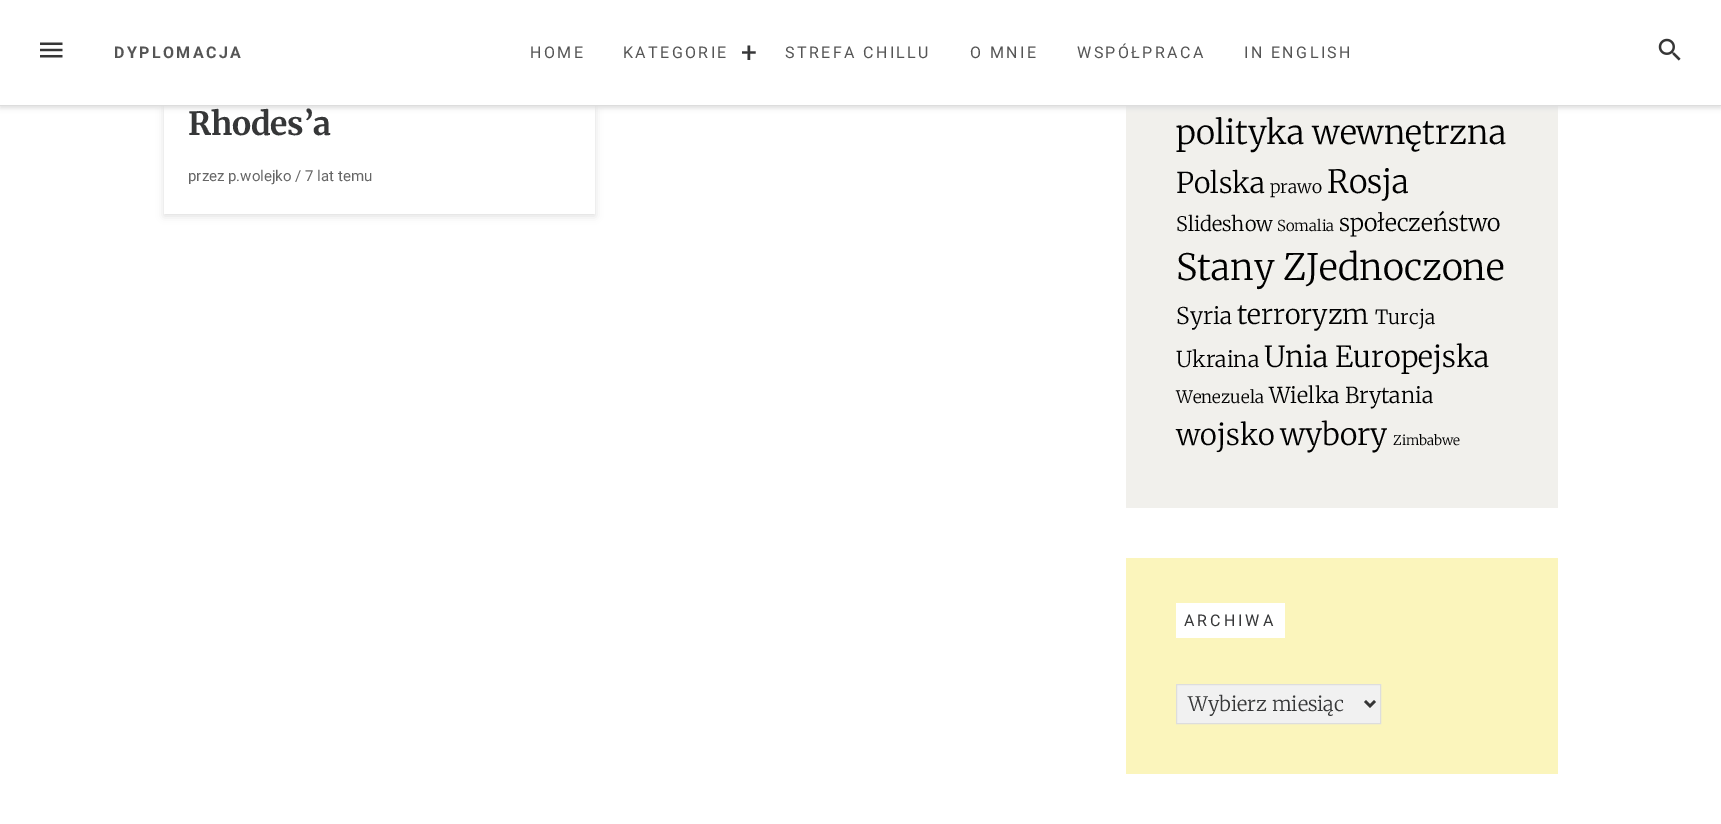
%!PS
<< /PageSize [1721 824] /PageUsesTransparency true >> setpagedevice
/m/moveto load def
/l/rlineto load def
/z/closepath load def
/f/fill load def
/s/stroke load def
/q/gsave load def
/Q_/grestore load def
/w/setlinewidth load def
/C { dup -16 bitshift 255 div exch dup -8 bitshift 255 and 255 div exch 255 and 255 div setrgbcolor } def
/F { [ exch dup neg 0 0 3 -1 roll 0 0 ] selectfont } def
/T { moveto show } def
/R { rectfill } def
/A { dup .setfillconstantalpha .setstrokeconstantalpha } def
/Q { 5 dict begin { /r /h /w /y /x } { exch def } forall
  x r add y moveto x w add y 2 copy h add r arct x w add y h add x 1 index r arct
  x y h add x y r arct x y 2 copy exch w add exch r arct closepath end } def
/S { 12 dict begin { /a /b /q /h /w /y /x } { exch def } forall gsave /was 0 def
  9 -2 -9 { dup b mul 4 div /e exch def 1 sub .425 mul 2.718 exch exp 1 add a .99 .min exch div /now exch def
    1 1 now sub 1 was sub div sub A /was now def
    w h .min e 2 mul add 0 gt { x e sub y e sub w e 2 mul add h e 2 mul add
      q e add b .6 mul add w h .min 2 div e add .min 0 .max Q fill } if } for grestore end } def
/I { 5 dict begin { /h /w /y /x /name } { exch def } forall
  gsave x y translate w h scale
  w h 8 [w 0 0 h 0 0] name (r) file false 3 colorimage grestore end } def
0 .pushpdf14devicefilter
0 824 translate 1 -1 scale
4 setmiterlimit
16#FFFFFF C
0 0 1721 824 R
16#DDDBDB C
164 -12 431 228 0 4 1 S
16#FFFFFF C
164 106 431 108 R
16#F1F0EC C
1126 106 432 402 R
16#DDDDDD C
0 1 1721 107 0 2.5 1 S
16#FFFFFF C
0 0 1721 105 R
16#DDDDDD C
0 105 1721 1 R
(1.rgb) 40 42 23 16 I
/Roboto-Bold 16 F
16#555555 C
114 58 m 2.4 0 (DYPLOMACJA) ashow
/Roboto-Regular 16 F
530 58 m 2.4 0 (HOME) ashow
623 58 m 2.4 0 (KATEGORIE) ashow
/Roboto-Regular 28 F
16#363738 C
741 62 m 2.4 0 (+) ashow
/Roboto-Regular 16 F
16#555555 C
785 58 m 2.4 0 (STREFA CHILLU) ashow
970 58 m 2.4 0 (O MNIE) ashow
1077 58 m 2.4 0 (WSPÓŁPRACA) ashow
1244 58 m 2.4 0 (IN ENGLISH) ashow
(2.rgb) 1658 38 23 23 I
/Merriweather-Bold 32 F
16#363738 C
188 135 m -.25 0 (Rhodes’a) ashow
/Roboto-Regular 15 F
16#666666 C
(przez p.wolejko / 7 lat temu) 188 181 T
/Merriweather-Light 33 F
16#000000 C
(polityka wewnętrzna) 1176 144 T
/Merriweather-Light 28.5 F
(Polska) 1176 193 T
/Merriweather-Light 17.5 F
(prawo) 1270 193 T
/Merriweather-Light 32 F
(Rosja) 1327 193 T
/Merriweather-Light 20 F
(Slideshow) 1176 231 T
/Merriweather-Light 15 F
(Somalia) 1277 231 T
/Merriweather-Light 23.25 F
(społeczeństwo) 1339 231 T
/Merriweather-Light 36.25 F
(Stany ZJednoczone) 1176 280 T
/Merriweather-Light 23 F
(Syria) 1176 324 T
/Merriweather-Light 27 F
(terroryzm) 1237 324 T
/Merriweather-Light 19.5 F
(Turcja) 1375 324 T
/Merriweather-Light 21.75 F
(Ukraina) 1176 367 T
/Merriweather-Light 29 F
(Unia Europejska) 1264 367 T
/Merriweather-Light 17 F
(Wenezuela) 1176 403 T
/Merriweather-Light 21.75 F
(Wielka Brytania) 1269 403 T
/Merriweather-Light 29 F
(wojsko) 1176 445 T
/Merriweather-Light 30 F
(wybory) 1280 445 T
/Merriweather-Light 13.5 F
(Zimbabwe) 1393 445 T
16#FBF5BC C
1126 558 432 216 R
16#FFFFFF C
1176 603 109 35 R
/Roboto-Regular 16 F
16#363738 C
1184 626 m 3 0 (ARCHIWA) ashow
16#F1F1F1 C
1176.5 684.5 m 204 0 l 0 39 l -204 0 l z q f Q_
16#DDDDDD C
s
16#363636 C
2.5 w
1365 701 m 5 5 l 5 -5 l s
/Merriweather-Light 20 F
16#363738 C
(Wybierz miesiąc) 1188 711 T
.poppdf14devicefilter showpage
